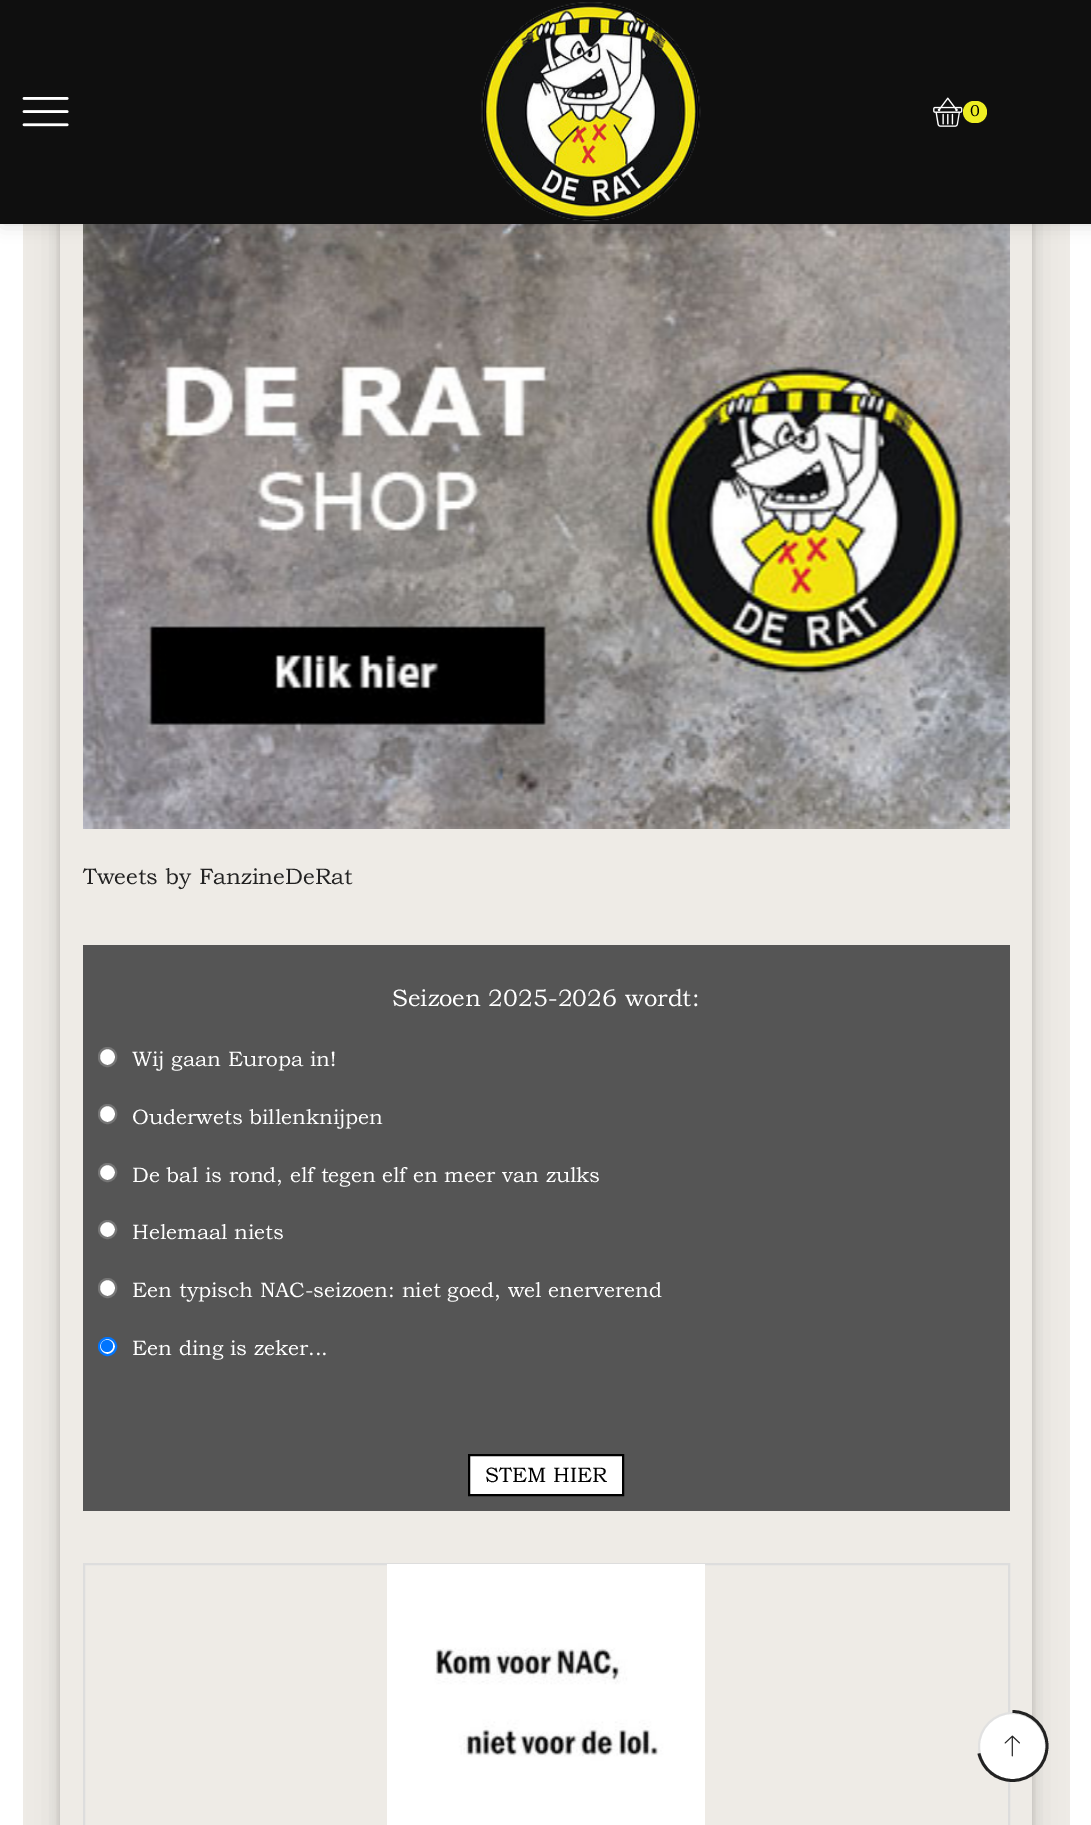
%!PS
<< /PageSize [1091 1825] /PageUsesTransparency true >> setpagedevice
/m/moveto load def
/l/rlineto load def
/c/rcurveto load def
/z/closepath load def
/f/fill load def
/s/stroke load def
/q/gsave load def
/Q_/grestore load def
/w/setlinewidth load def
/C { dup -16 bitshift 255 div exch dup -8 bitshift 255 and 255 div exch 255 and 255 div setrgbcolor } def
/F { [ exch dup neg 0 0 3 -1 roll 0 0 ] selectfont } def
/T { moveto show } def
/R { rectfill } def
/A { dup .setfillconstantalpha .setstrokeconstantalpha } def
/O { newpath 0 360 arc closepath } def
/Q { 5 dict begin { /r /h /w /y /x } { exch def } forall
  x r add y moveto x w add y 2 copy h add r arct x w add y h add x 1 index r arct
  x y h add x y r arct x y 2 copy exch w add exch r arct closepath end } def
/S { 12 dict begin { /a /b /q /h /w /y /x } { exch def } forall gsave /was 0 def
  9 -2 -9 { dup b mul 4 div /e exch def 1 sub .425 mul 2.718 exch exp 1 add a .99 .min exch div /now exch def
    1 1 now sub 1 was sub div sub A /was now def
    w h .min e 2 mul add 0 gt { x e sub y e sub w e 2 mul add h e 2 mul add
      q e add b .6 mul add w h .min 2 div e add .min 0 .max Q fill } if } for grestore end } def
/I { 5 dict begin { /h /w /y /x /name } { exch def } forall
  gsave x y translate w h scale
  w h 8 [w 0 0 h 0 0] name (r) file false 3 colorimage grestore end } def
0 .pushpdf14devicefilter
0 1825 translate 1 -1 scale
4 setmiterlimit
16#FFFFFF C
0 0 1091 1825 R
16#EEEBE6 C
23 224 1047 1601 R
q
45 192 m 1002 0 l 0 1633 l -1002 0 l z 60 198 m 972 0 l 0 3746 l -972 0 l z eoclip newpath
16#000000 C
60 207 972 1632 0 4.5 .15 S
Q_
q
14 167 m 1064 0 l 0 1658 l -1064 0 l z 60 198 m 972 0 l 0 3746 l -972 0 l z eoclip newpath
16#000000 C
60 213 972 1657 0 15 .12 S
Q_
(4.rgb) 83 224 927 605 I
16#000000 C
3 0 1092 224 0 9 .15 S
16#0F0F0F C
0 0 1091 224 R
(1.rgb) 22 97 47 30 I
(2.rgb) 481 2 220 220 I
(3.rgb) 933 97 30 30 I
16#EEEE22 C
963 101 24 22 11 Q f
/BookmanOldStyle-Regular 16 F
16#000000 C
(0) 970 116 T
/BookmanOldStyle-Regular 22.5 F
16#222222 C
(Tweets by FanzineDeRat) 83 884 T
16#555555 C
83 945 927 566 R
/BookmanOldStyle-Regular 24 F
16#FFFFFF C
(Seizoen 2025-2026 wordt:) 392 1006 T
99 1048 17 18 8.5 Q q f Q_
16#767676 C
2 w
s
/BookmanOldStyle-Regular 21 F
16#FFFFFF C
(Wij gaan Europa in!) 132 1066 T
99 1105 17 18 8.5 Q q f Q_
16#767676 C
s
16#FFFFFF C
(Ouderwets billenknijpen) 132 1124 T
107.5 1172.5 8.5 O q f Q_
16#767676 C
s
16#FFFFFF C
(De bal is rond, elf tegen elf en meer van zulks) 132 1182 T
107.5 1229.5 8.5 O q f Q_
16#767676 C
s
16#FFFFFF C
(Helemaal niets) 132 1239 T
99 1279 17 18 8.5 Q q f Q_
16#767676 C
s
16#FFFFFF C
(Een typisch NAC-seizoen: niet goed, wel enerverend) 132 1297 T
107.5 1346.5 8.5 O q f Q_
16#0075FF C
s
107 1346 6 O f
16#FFFFFF C
(Een ding is zeker...) 132 1355 T
469 1455 m 154 0 l 0 40 l -154 0 l z q f Q_
16#000000 C
s
(STEM HIER) 485 1482 T
16#DDDDDD C
84 1564 925 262 rectstroke
(5.rgb) 387 1564 318 261 I
16#FFFFFF C
1012.5 1746.5 33.5 O q f Q_
16#E1E1E1 C
s
16#222222 C
2.8 w
1012.5 1711.5 m 19 0 34.5 15.5 34.5 34.5 c 0 19 -15.5 34.5 -34.5 34.5 c -16.5 0 -30 -11.5 -33.5 -27 c s
(6.rgb) 1004 1735 16 22 I
.poppdf14devicefilter showpage
